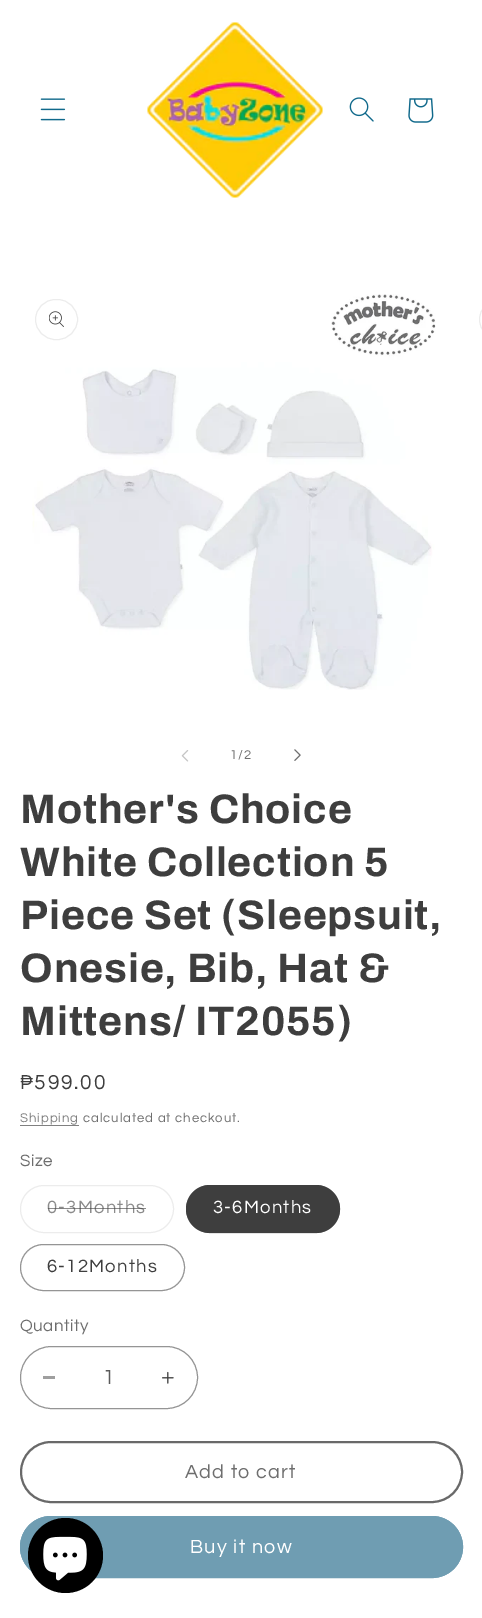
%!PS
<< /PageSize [482 1618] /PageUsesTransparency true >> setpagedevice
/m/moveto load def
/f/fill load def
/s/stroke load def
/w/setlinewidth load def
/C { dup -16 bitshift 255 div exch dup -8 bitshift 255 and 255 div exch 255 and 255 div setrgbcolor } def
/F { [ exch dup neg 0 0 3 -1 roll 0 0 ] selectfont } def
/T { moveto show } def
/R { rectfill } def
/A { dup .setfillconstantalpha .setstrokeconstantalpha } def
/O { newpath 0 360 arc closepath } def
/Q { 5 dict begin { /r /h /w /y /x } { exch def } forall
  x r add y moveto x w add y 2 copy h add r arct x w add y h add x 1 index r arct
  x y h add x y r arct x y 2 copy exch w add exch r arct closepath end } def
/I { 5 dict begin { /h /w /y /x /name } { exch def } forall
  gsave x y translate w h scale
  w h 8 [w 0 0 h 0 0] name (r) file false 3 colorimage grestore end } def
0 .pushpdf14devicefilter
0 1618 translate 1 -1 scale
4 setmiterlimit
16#FFFFFF C
0 0 482 1618 R
(1.rgb) 40 98 26 23 I
(2.rgb) 147 22 176 176 I
(3.rgb) 349 97 25 25 I
(4.rgb) 408 98 26 25 I
(5.rgb) 32 294 404 396 I
16#ECECEC C
35.5 299.5 42 40 20 Q s
(6.rgb) 49 311 15 16 I
479.5 299.5 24 40 20 Q s
(7.rgb) 181 750 8 12 I
/Questrial-Regular 13.1 F
16#6E6E6E C
230 759 m .9 0 (1/2) ashow
(8.rgb) 294 749 7 12 I
/Archivo-Bold 41.25 F
16#3E3E3E C
20 823 m .8 0 (Mother's Choice) ashow
20 876 m .8 0 (White Collection 5) ashow
20 929 m .8 0 (Piece Set \(Sleepsuit,) ashow
20 982 m .8 0 (Onesie, Bib, Hat &) ashow
20 1035 m .8 0 (Mittens/ IT2055\)) ashow
/Questrial-Regular 21 F
20 1089 m 1.75 0 (₱599.00) ashow
/Questrial-Regular 13.1 F
16#808080 C
20 1122 m .9 0 (Shipping) ashow
20 1125 59 1 R
16#6E6E6E C
83 1122 m .9 0 (calculated at checkout.) ashow
/Questrial-Regular 17 F
20 1166 m .5 0 (Size) ashow
16#ECECEC C
20.5 1185.5 153 47 23.5 Q s
/Questrial-Regular 18.5 F
16#8B8B8B C
47 1213 m 1.25 0 (0-3Months) ashow
0.6 A
16#3E3E3E C
48 1208 98 1 R
1 A
186 1185 154 48 24 Q f
0.55 A
186.5 1185.5 153 47 23.5 Q s
1 A
16#FFFFFF C
213 1213 m 1.25 0 (3-6Months) ashow
16#959595 C
20.5 1244.5 164 46 23 Q s
16#3E3E3E C
47 1272 m 1.25 0 (6-12Months) ashow
/Questrial-Regular 17 F
16#6E6E6E C
20 1331 m .5 0 (Quantity) ashow
16#9F9F9F C
43 1376 12 3 R
(9.rgb) 162 1371 12 13 I
16#959595 C
20.5 1346.5 177 62 31 Q s
/Questrial-Regular 21 F
16#5B5B5B C
(1) 103 1384 T
16#696969 C
2 w
21 1442 441 60 30 Q s
/Questrial-Regular 19.75 F
16#6E6E6E C
185 1478 m 1.25 0 (Add to cart) ashow
16#6F9DB2 C
20 1516 443 62 31 Q f
1 w
20.5 1516.5 442 61 30.5 Q s
16#FFFFFF C
190 1553 m 1.25 0 (Buy it now) ashow
16#000000 C
65.5 1555.5 37.5 O f
(10.rgb) 43 1536 44 45 I
.poppdf14devicefilter showpage
